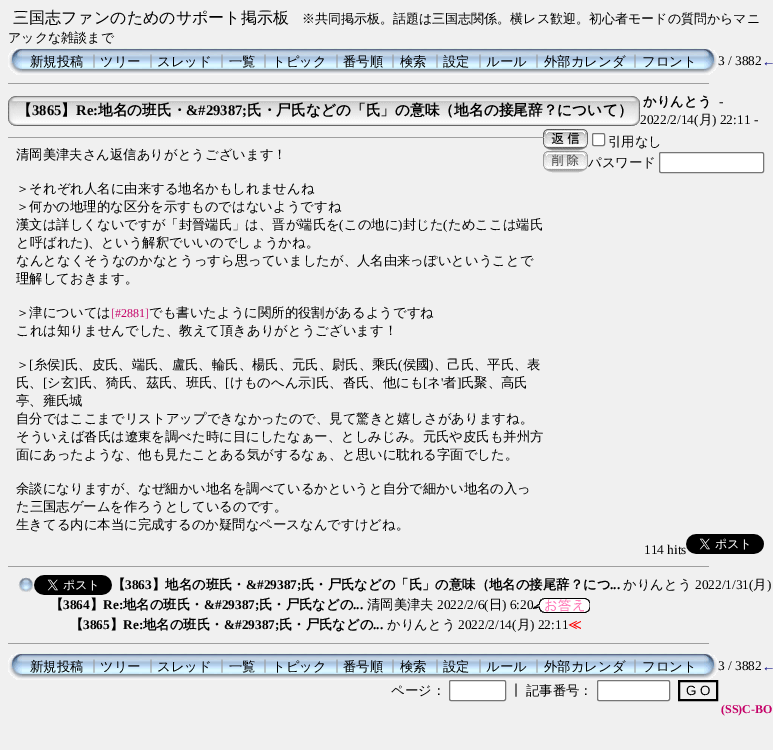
%!PS
<< /PageSize [773 750] >> setpagedevice
/f/fill load def
/s/stroke load def
/q/gsave load def
/Q_/grestore load def
/w/setlinewidth load def
/C { dup -16 bitshift 255 div exch dup -8 bitshift 255 and 255 div exch 255 and 255 div setrgbcolor } def
/F { [ exch dup neg 0 0 3 -1 roll 0 0 ] selectfont } def
/T { moveto show } def
/R { rectfill } def
/Q { 5 dict begin { /r /h /w /y /x } { exch def } forall
  x r add y moveto x w add y 2 copy h add r arct x w add y h add x 1 index r arct
  x y h add x y r arct x y 2 copy exch w add exch r arct closepath end } def
/I { 5 dict begin { /h /w /y /x /name } { exch def } forall
  gsave x y translate w h scale
  w h 8 [w 0 0 h 0 0] name (r) file false 3 colorimage grestore end } def
0 750 translate 1 -1 scale
4 setmiterlimit
16#F0F0F0 C
0 0 773 750 R
/WenQuanYiZenHei-Medium 16 F
16#000000 C
(三国志ファンのためのサポート掲示板) 13 23 T
/WenQuanYiZenHei-Medium 13 F
(※共同掲示板。話題は三国志関係。横レス歓迎。初心者モードの質問からマニ) 302 23 T
(アックな雑談まで) 8 42 T
(1.rgb) 8 48 14 27 I
(2.rgb) 22 48 682 27 I
/WenQuanYiZenHei-Medium 13.35 F
(新規投稿) 30 66 T
16#999999 C
(┃) 87 66 T
16#000000 C
(ツリー) 100 66 T
16#999999 C
(┃) 144 66 T
16#000000 C
(スレッド) 157 66 T
16#999999 C
(┃) 215 66 T
16#000000 C
(一覧) 229 66 T
16#999999 C
(┃) 258 66 T
16#000000 C
(トピック) 272 66 T
16#999999 C
(┃) 330 66 T
16#000000 C
(番号順) 343 66 T
16#999999 C
(┃) 386 66 T
16#000000 C
(検索) 400 66 T
16#999999 C
(┃) 430 66 T
16#000000 C
(設定) 443 66 T
16#999999 C
(┃) 473 66 T
16#000000 C
(ルール) 486 66 T
16#999999 C
(┃) 530 66 T
16#000000 C
(外部カレンダ) 544 66 T
16#999999 C
(┃) 628 66 T
16#000000 C
(フロント) 642 66 T
(3.rgb) 704 48 14 27 I
/LiberationSerif-Regular 13.35 F
(3 / 3882) 718 65 T
/LiberationSerif-Bold 13.35 F
16#000080 C
(←) 762 66 T
16#9F9F9F C
8 83 702 1 R
16#EEEEEE C
709 83 1 1 R
(4.rgb) 8 96 9 30 I
(5.rgb) 17 96 614 30 I
/WenQuanYiZenHei-Bold 14.7 F
16#000000 C
(【) 17 115 T
/LiberationSerif-Bold 14.7 F
(3865) 32 115 T
/WenQuanYiZenHei-Bold 14.7 F
(】) 61 115 T
/LiberationSerif-Bold 14.7 F
(Re:) 76 115 T
/WenQuanYiZenHei-Bold 14.7 F
(地名の班氏・) 98 115 T
/LiberationSerif-Bold 14.7 F
(&#29387;) 186 115 T
/WenQuanYiZenHei-Bold 14.7 F
(氏・尸氏などの「氏」の意味（地名の接尾辞？について）) 247 115 T
(6.rgb) 631 96 9 30 I
/WenQuanYiZenHei-Bold 13.35 F
(かりんとう) 643 106 T
/LiberationSerif-Regular 13.35 F
(-) 719 106 T
(2022/2/14\() 640 124 T
/WenQuanYiZenHei-Medium 13.35 F
(月) 699 124 T
/LiberationSerif-Regular 13.35 F
(\) 22:11 -) 712 124 T
/WenQuanYiZenHei-Medium 13.35 F
(清岡美津夫さん返信ありがとうございます！) 16 159 T
(＞それぞれ人名に由来する地名かもしれませんね) 16 193 T
(＞何かの地理的な区分を示すものではないようですね) 16 211 T
(漢文は詳しくないですが「封晉端氏」は、晋が端氏を) 16 229 T
/LiberationSerif-Regular 13.35 F
(\() 339 229 T
/WenQuanYiZenHei-Medium 13.35 F
(この地に) 344 229 T
/LiberationSerif-Regular 13.35 F
(\)) 398 229 T
/WenQuanYiZenHei-Medium 13.35 F
(封じた) 403 229 T
/LiberationSerif-Regular 13.35 F
(\() 443 229 T
/WenQuanYiZenHei-Medium 13.35 F
(ためここは端氏) 448 229 T
(と呼ばれた) 16 247 T
/LiberationSerif-Regular 13.35 F
(\)) 84 247 T
/WenQuanYiZenHei-Medium 13.35 F
(、という解釈でいいのでしょうかね。) 88 247 T
(なんとなくそうなのかなとうっすら思っていましたが、人名由来っぽいということで) 16 265 T
(理解しておきます。) 16 283 T
(＞津については) 16 317 T
/LiberationSerif-Regular 12 F
16#C50067 C
([#2881]) 111 317 T
/WenQuanYiZenHei-Medium 13.35 F
16#000000 C
(でも書いたように関所的役割があるようですね) 149 317 T
(これは知りませんでした、教えて頂きありがとうございます！) 16 335 T
(＞) 16 369 T
/LiberationSerif-Regular 13.35 F
([) 29 369 T
/WenQuanYiZenHei-Medium 13.35 F
(糸侯) 34 369 T
/LiberationSerif-Regular 13.35 F
(]) 60 369 T
/WenQuanYiZenHei-Medium 13.35 F
(氏、皮氏、端氏、盧氏、輪氏、楊氏、元氏、尉氏、乘氏) 65 369 T
/LiberationSerif-Regular 13.35 F
(\() 398 369 T
/WenQuanYiZenHei-Medium 13.35 F
(侯國) 403 369 T
/LiberationSerif-Regular 13.35 F
(\)) 429 369 T
/WenQuanYiZenHei-Medium 13.35 F
(、己氏、平氏、表) 434 369 T
(氏、) 16 387 T
/LiberationSerif-Regular 13.35 F
([) 43 387 T
/WenQuanYiZenHei-Medium 13.35 F
(シ玄) 47 387 T
/LiberationSerif-Regular 13.35 F
(]) 74 387 T
/WenQuanYiZenHei-Medium 13.35 F
(氏、猗氏、茲氏、班氏、) 79 387 T
/LiberationSerif-Regular 13.35 F
([) 225 387 T
/WenQuanYiZenHei-Medium 13.35 F
(けものへん示) 230 387 T
/LiberationSerif-Regular 13.35 F
(]) 311 387 T
/WenQuanYiZenHei-Medium 13.35 F
(氏、沓氏、他にも) 316 387 T
/LiberationSerif-Regular 13.35 F
([) 423 387 T
/WenQuanYiZenHei-Medium 13.35 F
(ネ) 427 387 T
/LiberationSerif-Regular 13.35 F
(') 441 387 T
/WenQuanYiZenHei-Medium 13.35 F
(者) 443 387 T
/LiberationSerif-Regular 13.35 F
(]) 457 387 T
/WenQuanYiZenHei-Medium 13.35 F
(氏聚、高氏) 461 387 T
(亭、雍氏城) 16 405 T
(自分ではここまでリストアップできなかったので、見て驚きと嬉しさがありますね。) 16 423 T
(そういえば沓氏は遼東を調べた時に目にしたなぁー、としみじみ。元氏や皮氏も并州方) 16 441 T
(面にあったような、他も見たことある気がするなぁ、と思いに耽れる字面でした。) 16 459 T
(余談になりますが、なぜ細かい地名を調べているかというと自分で細かい地名の入っ) 16 493 T
(た三国志ゲームを作ろうとしているのです。) 16 511 T
(生きてる内に本当に完成するのか疑問なペースなんですけどね。) 16 529 T
(7.rgb) 543 129 45 22 I
16#9F9F9F C
8 137 537 1 R
16#EEEEEE C
544 137 1 1 R
16#FFFFFF C
592.5 133.5 12 12 1.5 Q q f Q_
16#767676 C
s
16#000000 C
(引用なし) 608 146 T
(8.rgb) 543 151 45 22 I
(パスワード) 588 167 T
16#FFFFFF C
659.5 152.5 104 20 1.5 Q q f Q_
16#767676 C
s
/LiberationSerif-Regular 13.35 F
16#000000 C
(114 hits) 644 554 T
(9.rgb) 686 534 78 20 I
16#9F9F9F C
8 566 702 1 R
16#EEEEEE C
709 566 1 1 R
(10.rgb) 18 577 16 15 I
(11.rgb) 34 575 78 20 I
/WenQuanYiZenHei-Bold 13.35 F
16#000000 C
(【) 112 589 T
/LiberationSerif-Bold 13.35 F
(3863) 125 589 T
/WenQuanYiZenHei-Bold 13.35 F
(】地名の班氏・) 152 589 T
/LiberationSerif-Bold 13.35 F
(&#29387;) 246 589 T
/WenQuanYiZenHei-Bold 13.35 F
(氏・尸氏などの「氏」の意味（地名の接尾辞？につ) 301 589 T
/LiberationSerif-Bold 13.35 F
(...) 610 589 T
/WenQuanYiZenHei-Medium 13.35 F
(かりんとう) 623 589 T
/LiberationSerif-Regular 13.35 F
(2022/1/31\() 695 589 T
/WenQuanYiZenHei-Medium 13.35 F
(月) 753 589 T
/LiberationSerif-Regular 13.35 F
(\)) 767 589 T
/WenQuanYiZenHei-Bold 13.35 F
(【) 50 609 T
/LiberationSerif-Bold 13.35 F
(3864) 63 609 T
/WenQuanYiZenHei-Bold 13.35 F
(】) 90 609 T
/LiberationSerif-Bold 13.35 F
(Re:) 103 609 T
/WenQuanYiZenHei-Bold 13.35 F
(地名の班氏・) 123 609 T
/LiberationSerif-Bold 13.35 F
(&#29387;) 204 609 T
/WenQuanYiZenHei-Bold 13.35 F
(氏・尸氏などの) 259 609 T
/LiberationSerif-Bold 13.35 F
(...) 353 609 T
/WenQuanYiZenHei-Medium 13.35 F
(清岡美津夫) 367 609 T
/LiberationSerif-Regular 13.35 F
(2022/2/6\() 437 609 T
/WenQuanYiZenHei-Medium 13.35 F
(日) 489 609 T
/LiberationSerif-Regular 13.35 F
(\) 6:20) 502 609 T
(12.rgb) 533 598 57 15 I
/WenQuanYiZenHei-Bold 13.35 F
(【) 70 629 T
/LiberationSerif-Bold 13.35 F
(3865) 83 629 T
/WenQuanYiZenHei-Bold 13.35 F
(】) 110 629 T
/LiberationSerif-Bold 13.35 F
(Re:) 123 629 T
/WenQuanYiZenHei-Bold 13.35 F
(地名の班氏・) 143 629 T
/LiberationSerif-Bold 13.35 F
(&#29387;) 224 629 T
/WenQuanYiZenHei-Bold 13.35 F
(氏・尸氏などの) 279 629 T
/LiberationSerif-Bold 13.35 F
(...) 373 629 T
/WenQuanYiZenHei-Medium 13.35 F
(かりんとう) 387 629 T
/LiberationSerif-Regular 13.35 F
(2022/2/14\() 458 629 T
/WenQuanYiZenHei-Medium 13.35 F
(月) 517 629 T
/LiberationSerif-Regular 13.35 F
(\) 22:11) 530 629 T
/WenQuanYiZenHei-Bold 13.35 F
16#FF0000 C
(≪) 568 629 T
16#9F9F9F C
8 643 702 1 R
16#EEEEEE C
709 643 1 1 R
(1.rgb) 8 653 14 27 I
(2.rgb) 22 653 682 27 I
/WenQuanYiZenHei-Medium 13.35 F
16#000000 C
(新規投稿) 30 671 T
16#999999 C
(┃) 87 671 T
16#000000 C
(ツリー) 100 671 T
16#999999 C
(┃) 144 671 T
16#000000 C
(スレッド) 157 671 T
16#999999 C
(┃) 215 671 T
16#000000 C
(一覧) 229 671 T
16#999999 C
(┃) 258 671 T
16#000000 C
(トピック) 272 671 T
16#999999 C
(┃) 330 671 T
16#000000 C
(番号順) 343 671 T
16#999999 C
(┃) 386 671 T
16#000000 C
(検索) 400 671 T
16#999999 C
(┃) 430 671 T
16#000000 C
(設定) 443 671 T
16#999999 C
(┃) 473 671 T
16#000000 C
(ルール) 486 671 T
16#999999 C
(┃) 530 671 T
16#000000 C
(外部カレンダ) 544 671 T
16#999999 C
(┃) 628 671 T
16#000000 C
(フロント) 642 671 T
(3.rgb) 704 653 14 27 I
/LiberationSerif-Regular 13.35 F
(3 / 3882) 718 670 T
/LiberationSerif-Bold 13.35 F
16#000080 C
(←) 762 671 T
/WenQuanYiZenHei-Medium 13.35 F
16#000000 C
(ページ：) 391 695 T
16#FFFFFF C
449.5 680.5 56 20 1.5 Q q f Q_
16#767676 C
s
16#000000 C
(┃) 509 695 T
(記事番号：) 526 695 T
16#FFFFFF C
597.5 680.5 72 20 1.5 Q q f Q_
16#767676 C
s
16#000000 C
2 w
679 681 38 19 rectstroke
/LiberationSans-Regular 13.35 F
(G O) 686 695 T
/LiberationSerif-Bold 12 F
16#C50067 C
(\(SS\)C-BO) 721 713 T
showpage
